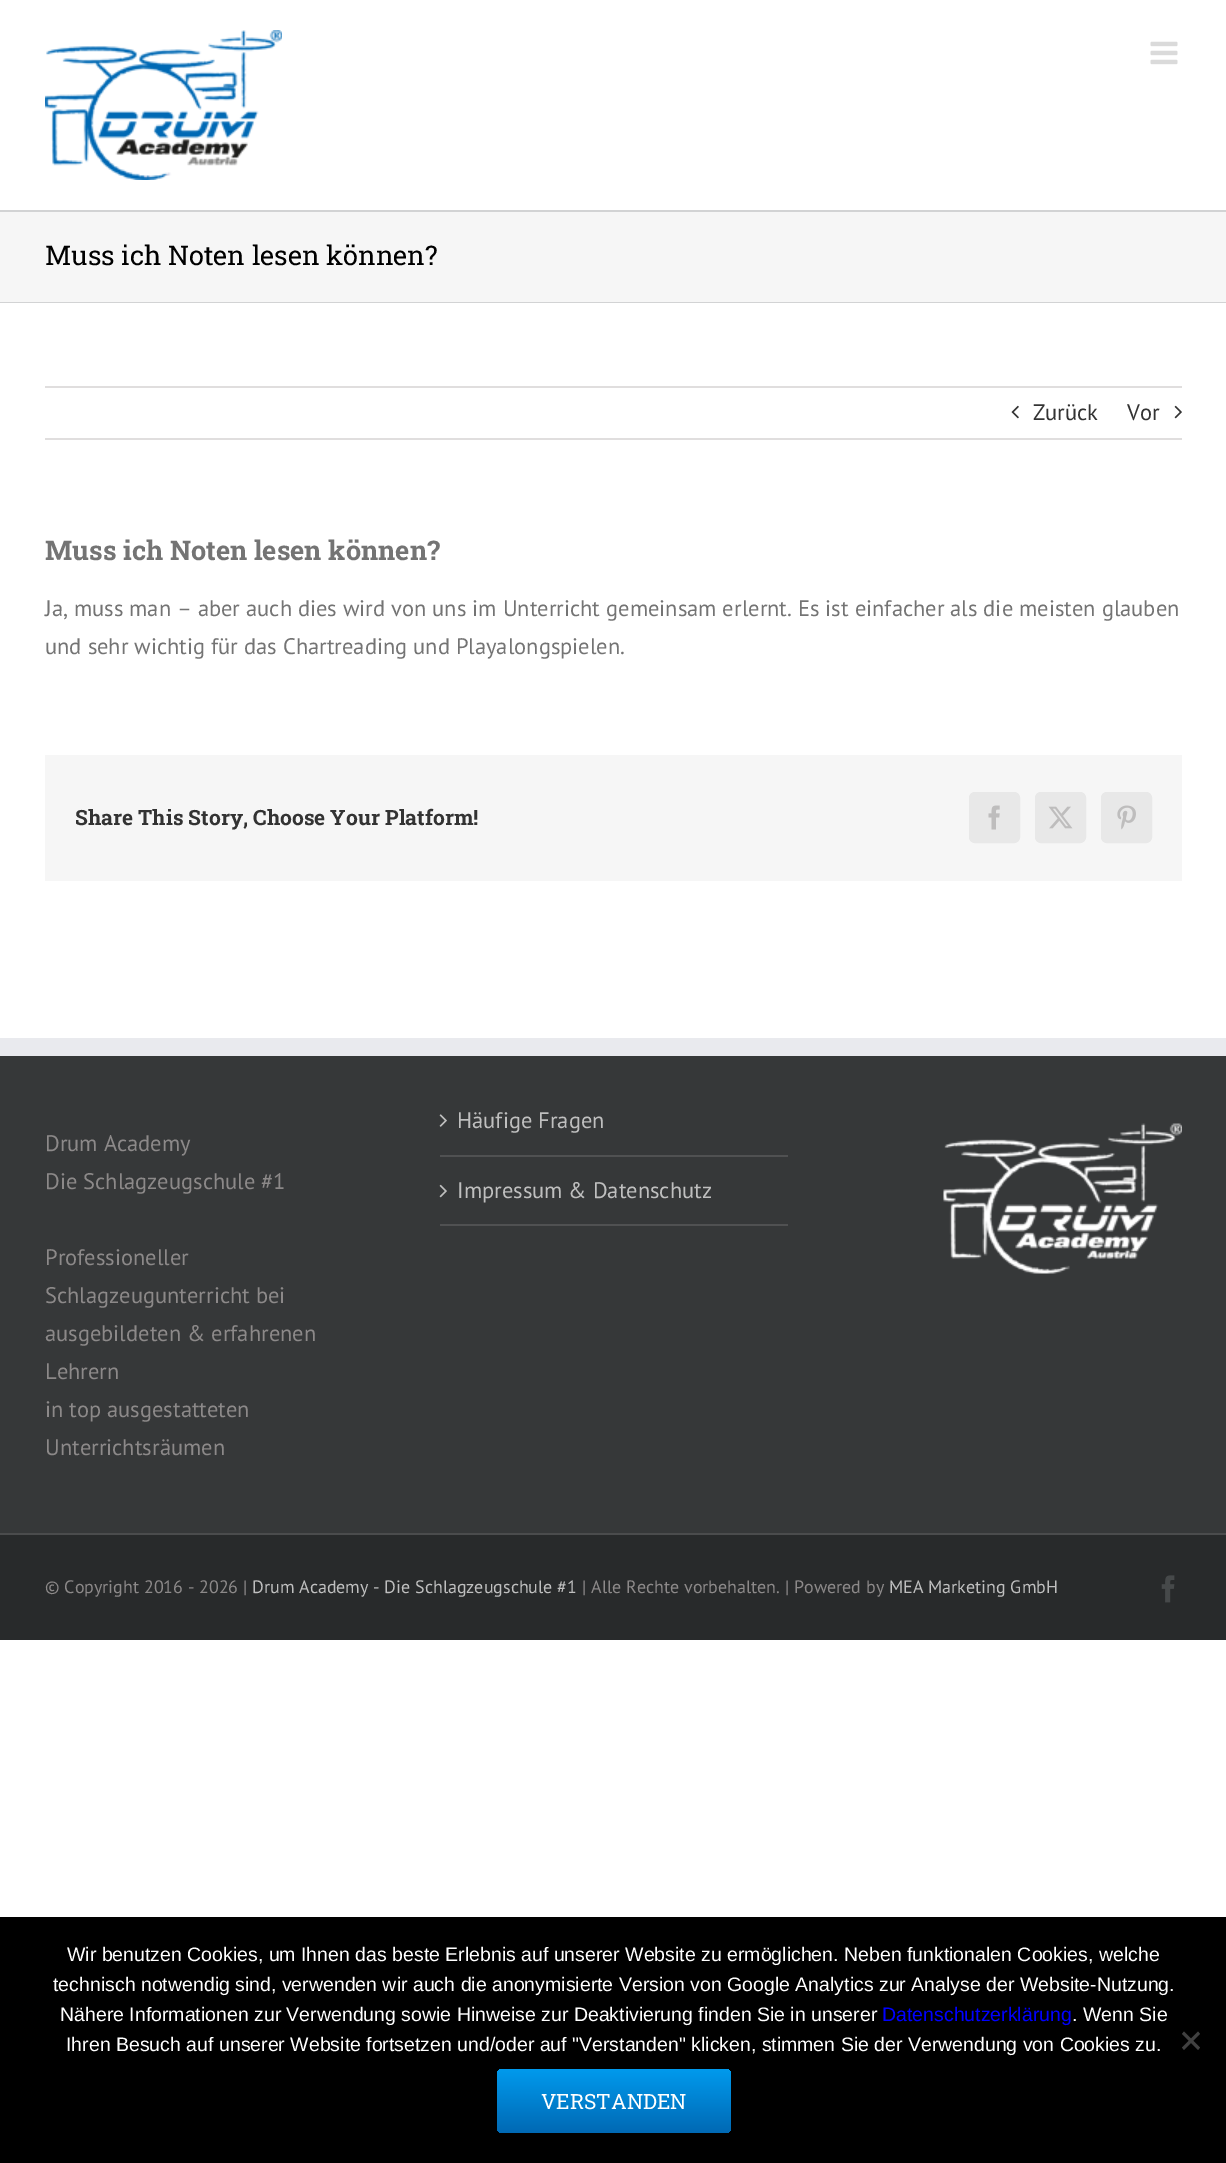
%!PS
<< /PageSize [1226 2163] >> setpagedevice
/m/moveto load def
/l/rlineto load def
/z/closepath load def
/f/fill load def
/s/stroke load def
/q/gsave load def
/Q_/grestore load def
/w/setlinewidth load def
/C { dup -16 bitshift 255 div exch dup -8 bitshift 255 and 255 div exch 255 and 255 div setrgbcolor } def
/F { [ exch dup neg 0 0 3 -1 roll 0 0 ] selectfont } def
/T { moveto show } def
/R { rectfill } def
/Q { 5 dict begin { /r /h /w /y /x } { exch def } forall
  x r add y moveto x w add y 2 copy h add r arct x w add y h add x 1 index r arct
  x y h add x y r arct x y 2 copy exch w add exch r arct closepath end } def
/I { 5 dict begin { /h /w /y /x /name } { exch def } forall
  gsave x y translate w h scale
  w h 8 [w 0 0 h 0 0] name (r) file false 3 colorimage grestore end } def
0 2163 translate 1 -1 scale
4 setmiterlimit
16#FFFFFF C
0 0 1226 2163 R
(1.rgb) 45 30 237 150 I
(2.rgb) 1150 41 28 24 I
16#F6F6F6 C
0 212 1226 90 R
16#D2D3D4 C
0 210 1226 2 R
0 302 1226 1 R
/RobotoSlab-Regular 27 F
16#000000 C
(Muss ich Noten lesen können?) 45 265 T
16#E0DEDE C
45 386 1137 2 R
45 438 1137 2 R
(3.rgb) 1011 405 8 14 I
/PTSans-Regular 22.5 F
16#333333 C
(Zurück) 1033 420 T
(Vor) 1127 420 T
(4.rgb) 1174 405 8 14 I
/RobotoSlab-Bold 27 F
16#747474 C
(Muss ich Noten lesen können?) 45 560 T
/PTSans-Regular 22.5 F
(Ja, muss man – aber auch dies wird von uns im Unterricht gemeinsam erlernt. Es ist einfacher als die meisten glauben) 45 616 T
(und sehr wichtig für das Chartreading und Playalongspielen.) 45 654 T
16#F6F6F6 C
45 755 1137 126 R
/RobotoSlab-Bold 21 F
16#333333 C
(Share This Story, Choose Your Platform!) 75 825 T
16#E8E8E8 C
970 793 49 49 5 Q q f Q_
2 w
s
(5.rgb) 988 805 12 25 I
1036 793 49 49 5 Q q f Q_
s
(6.rgb) 1048 806 25 23 I
1102 793 49 49 5 Q q f Q_
s
(7.rgb) 1117 805 19 25 I
16#363839 C
0 1056 1226 477 R
16#E9EAEE C
0 1038 1226 18 R
/PTSans-Regular 22.5 F
16#8C8989 C
(Drum Academy) 45 1151 T
(Die Schlagzeugschule #1) 45 1189 T
(Professioneller) 45 1265 T
(Schlagzeugunterricht bei) 45 1303 T
(ausgebildeten & erfahrenen) 45 1341 T
(Lehrern) 45 1379 T
(in top ausgestatteten) 45 1417 T
(Unterrichtsräumen) 45 1455 T
16#505152 C
440 1155 348 2 R
(8.rgb) 439 1114 8 13 I
16#BFBFBF C
(Häufige Fragen) 457 1128 T
16#505152 C
440 1224 348 2 R
(9.rgb) 439 1184 8 14 I
16#BFBFBF C
(Impressum & Datenschutz) 457 1198 T
(10.rgb) 943 1123 239 151 I
16#282A2B C
0 1535 1226 105 R
16#4B4C4D C
0 1533 1226 2 R
/PTSans-Regular 18 F
16#8C8989 C
(© Copyright 2016 - 2026 |) 45 1593 T
16#BFBFBF C
(Drum Academy - Die Schlagzeugschule #1) 252 1593 T
16#8C8989 C
(| Alle Rechte vorbehalten. | Powered by) 582 1593 T
16#BFBFBF C
(MEA Marketing GmbH) 889 1593 T
(11.rgb) 1161 1575 14 28 I
16#000000 C
0 1917 1226 246 R
/LiberationSans-Regular 19.5 F
16#FFFFFF C
(Wir benutzen Cookies, um Ihnen das beste Erlebnis auf unserer Website zu ermöglichen. Neben funktionalen Cookies, welche) 67 1961 T
(technisch notwendig sind, verwenden wir auch die anonymisierte Version von Google Analytics zur Analyse der Website-Nutzung.) 53 1991 T
(Nähere Informationen zur Verwendung sowie Hinweise zur Deaktivierung finden Sie in unserer) 60 2021 T
16#0000FF C
(Datenschutzerklärung) 882 2021 T
16#FFFFFF C
(. Wenn Sie) 1072 2021 T
(Ihren Besuch auf unserer Website fortsetzen und/oder auf "Verstanden" klicken, stimmen Sie der Verwendung von Cookies zu.) 66 2051 T
16#404040 C
1198 2031.5 m 2 2.5 l -16 16 l -2 -2.5 l z f
1182 2034 m 2 -2.5 l 16 16 l -2 2.5 l z f
q 497 2069 234 64 6 Q clip newpath
<< /ShadingType 2 /ColorSpace /DeviceRGB /Coords [614 2069 614 2133] /Extend [true true] /Function << /FunctionType 2 /Domain [0 1] /C0 [0 .604 .929] /C1 [0 .412 .706] /N 1 >> >> shfill Q_
/RobotoSlab-Regular 21 F
16#FFFFFF C
(VERSTANDEN) 541 2109 T
showpage
